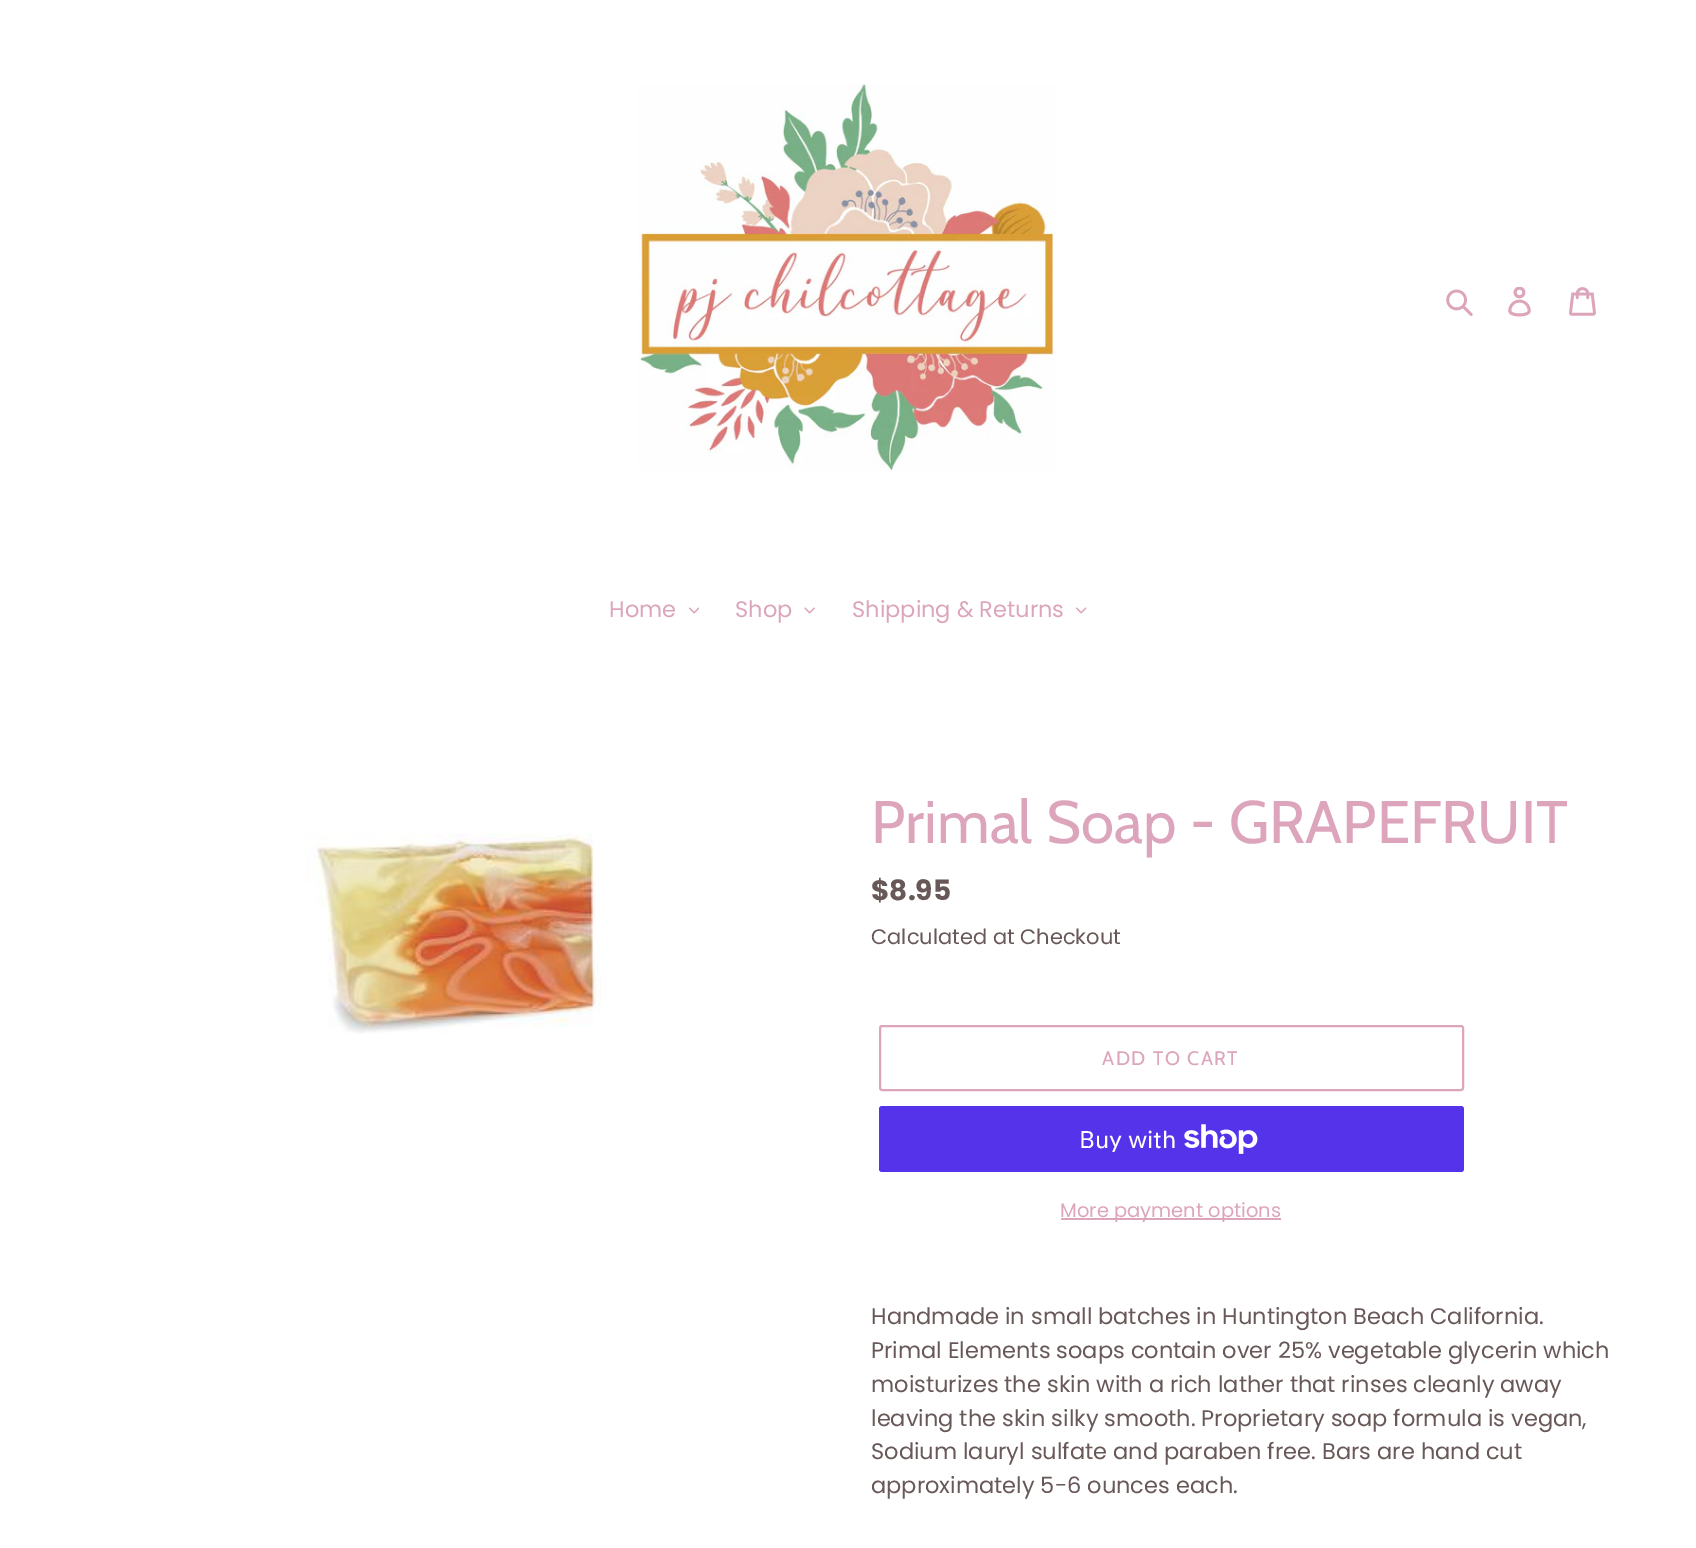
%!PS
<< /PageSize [1696 1548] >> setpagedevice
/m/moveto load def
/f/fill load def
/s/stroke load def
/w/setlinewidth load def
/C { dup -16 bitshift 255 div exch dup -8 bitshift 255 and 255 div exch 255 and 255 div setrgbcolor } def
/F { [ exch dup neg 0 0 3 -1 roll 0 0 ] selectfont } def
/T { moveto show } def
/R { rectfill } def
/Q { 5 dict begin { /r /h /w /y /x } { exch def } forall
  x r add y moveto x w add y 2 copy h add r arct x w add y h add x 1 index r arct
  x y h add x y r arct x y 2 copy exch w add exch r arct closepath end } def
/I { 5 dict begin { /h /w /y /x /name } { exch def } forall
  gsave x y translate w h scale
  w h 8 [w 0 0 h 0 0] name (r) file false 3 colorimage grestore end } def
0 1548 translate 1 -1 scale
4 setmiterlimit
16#FFFFFF C
0 0 1696 1548 R
(1.rgb) 638 84 417 387 I
(2.rgb) 1446 289 27 28 I
(3.rgb) 1508 287 23 30 I
(4.rgb) 1569 287 27 29 I
/Poppins-Regular 22.5 F
16#DCA5BB C
(Home) 609 617 T
(5.rgb) 689 607 10 7 I
(Shop) 735 617 T
(6.rgb) 804 607 11 7 I
(Shipping & Returns) 852 617 T
(7.rgb) 1076 607 11 7 I
(8.rgb) 305 833 296 201 I
/Cabin-Regular 60 F
(Primal Soap - GRAPEFRUIT) 871 843 T
/Poppins-Bold 28 F
16#685858 C
($8.95) 871 900 T
/Poppins-Regular 21 F
(Calculated at Checkout) 871 944 T
16#DCA5BB C
2 w
880 1026 583 64 2 Q s
/Cabin-Regular 19.5 F
1102 1065 m 1.5 0 (ADD TO CART) ashow
16#5433EB C
879 1106 585 66 3 Q f
/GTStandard-Regular 24 F
16#FFFFFF C
(Buy with) 1079 1148 T
(9.rgb) 1184 1124 74 30 I
16#DCA5BB C
1061 1218 220 2 R
/Poppins-Regular 19.5 F
(More payment options) 1060 1217 T
/Poppins-Regular 22.5 F
16#685858 C
(Handmade in small batches in Huntington Beach California.) 871 1324 T
(Primal Elements soaps contain over 25% vegetable glycerin which) 871 1358 T
(moisturizes the skin with a rich lather that rinses cleanly away) 871 1392 T
(leaving the skin silky smooth. Proprietary soap formula is vegan,) 871 1426 T
(Sodium lauryl sulfate and paraben free. Bars are hand cut) 871 1459 T
(approximately 5-6 ounces each.) 871 1493 T
showpage
